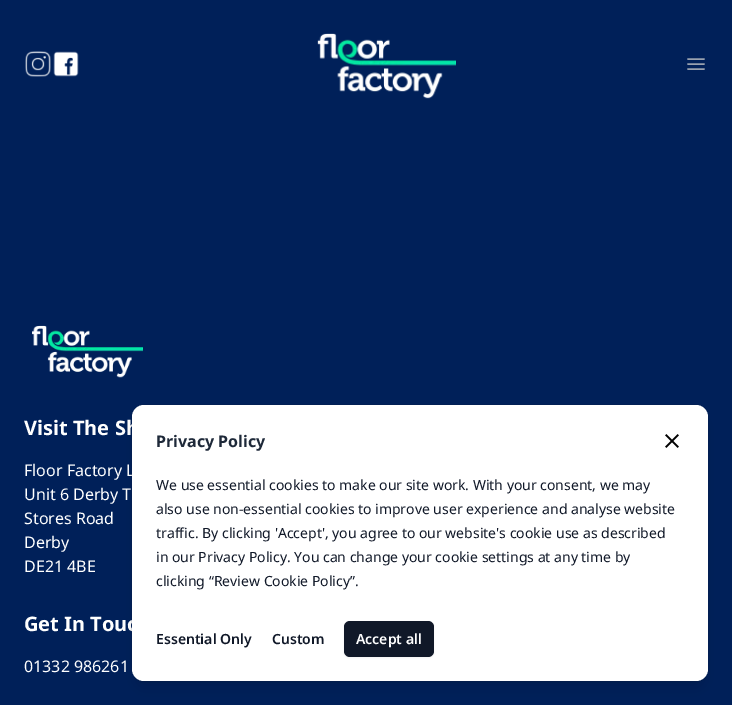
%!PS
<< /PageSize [732 705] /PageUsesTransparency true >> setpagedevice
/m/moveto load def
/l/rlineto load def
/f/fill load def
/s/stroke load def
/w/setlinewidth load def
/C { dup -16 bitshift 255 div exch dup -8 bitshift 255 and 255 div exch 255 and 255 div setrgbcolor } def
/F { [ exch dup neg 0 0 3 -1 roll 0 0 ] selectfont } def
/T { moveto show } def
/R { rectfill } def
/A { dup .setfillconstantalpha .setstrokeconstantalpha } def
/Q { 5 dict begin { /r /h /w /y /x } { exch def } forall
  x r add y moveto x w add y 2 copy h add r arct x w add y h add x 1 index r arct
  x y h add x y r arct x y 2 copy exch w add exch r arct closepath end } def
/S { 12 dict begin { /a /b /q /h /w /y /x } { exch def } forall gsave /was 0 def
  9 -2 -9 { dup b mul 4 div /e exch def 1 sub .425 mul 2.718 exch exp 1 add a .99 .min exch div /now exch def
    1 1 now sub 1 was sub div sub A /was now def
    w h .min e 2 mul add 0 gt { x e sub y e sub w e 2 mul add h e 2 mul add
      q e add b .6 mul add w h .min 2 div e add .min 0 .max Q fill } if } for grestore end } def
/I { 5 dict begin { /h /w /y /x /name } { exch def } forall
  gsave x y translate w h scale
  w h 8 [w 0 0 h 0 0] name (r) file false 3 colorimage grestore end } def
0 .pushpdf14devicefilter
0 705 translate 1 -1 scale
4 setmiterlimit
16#002059 C
0 0 732 705 R
(1.rgb) 25 51 26 26 I
(2.rgb) 53 51 26 26 I
(3.rgb) 317 33 139 66 I
16#99A1AF C
1.5 w
1 setlinecap
1 setlinejoin
688 59 m 16 0 l 688 64 m 16 0 l 688 69 m 16 0 l s
(4.rgb) 32 325 111 53 I
/NotoSans-Bold 20 F
16#FFFFFF C
(Visit The Sh) 24 435 T
/NotoSans-Regular 16 F
(Floor Factory L) 24 476 T
(Unit 6 Derby T) 24 500 T
(Stores Road) 24 524 T
(Derby) 24 548 T
(DE21 4BE) 24 572 T
/NotoSans-Bold 20 F
(Get In Touc) 24 631 T
/NotoSans-Regular 16 F
(01332 986261) 24 672 T
16#000000 C
136 413 568 268 8 3 .1 S
135 418 570 270 9 7.5 .1 S
0.1 A
16#101828 C
1 w
0 setlinecap
0 setlinejoin
131.5 404.5 577 277 12.5 Q s
1 A
16#FFFFFF C
132 405 576 276 12 Q f
/NotoSans-Bold 16 F
16#1E2939 C
(Privacy Policy) 156 447 T
(5.rgb) 665 434 14 14 I
/NotoSans-Regular 14 F
16#101828 C
(We use essential cookies to make our site work. With your consent, we may) 156 490 T
(also use non-essential cookies to improve user experience and analyse website) 156 514 T
(traffic. By clicking 'Accept', you agree to our website's cookie use as described) 156 538 T
(in our Privacy Policy. You can change your cookie settings at any time by) 156 562 T
(clicking “Review Cookie Policy”.) 156 586 T
/NotoSans-SemiBold 14 F
(Essential Only) 156 644 T
(Custom) 272 644 T
16#000000 C
344 622 90 36 6 1 .05 S
16#101828 C
344 621 90 36 6 Q f
16#FFFFFF C
(Accept all) 356 644 T
.poppdf14devicefilter showpage
